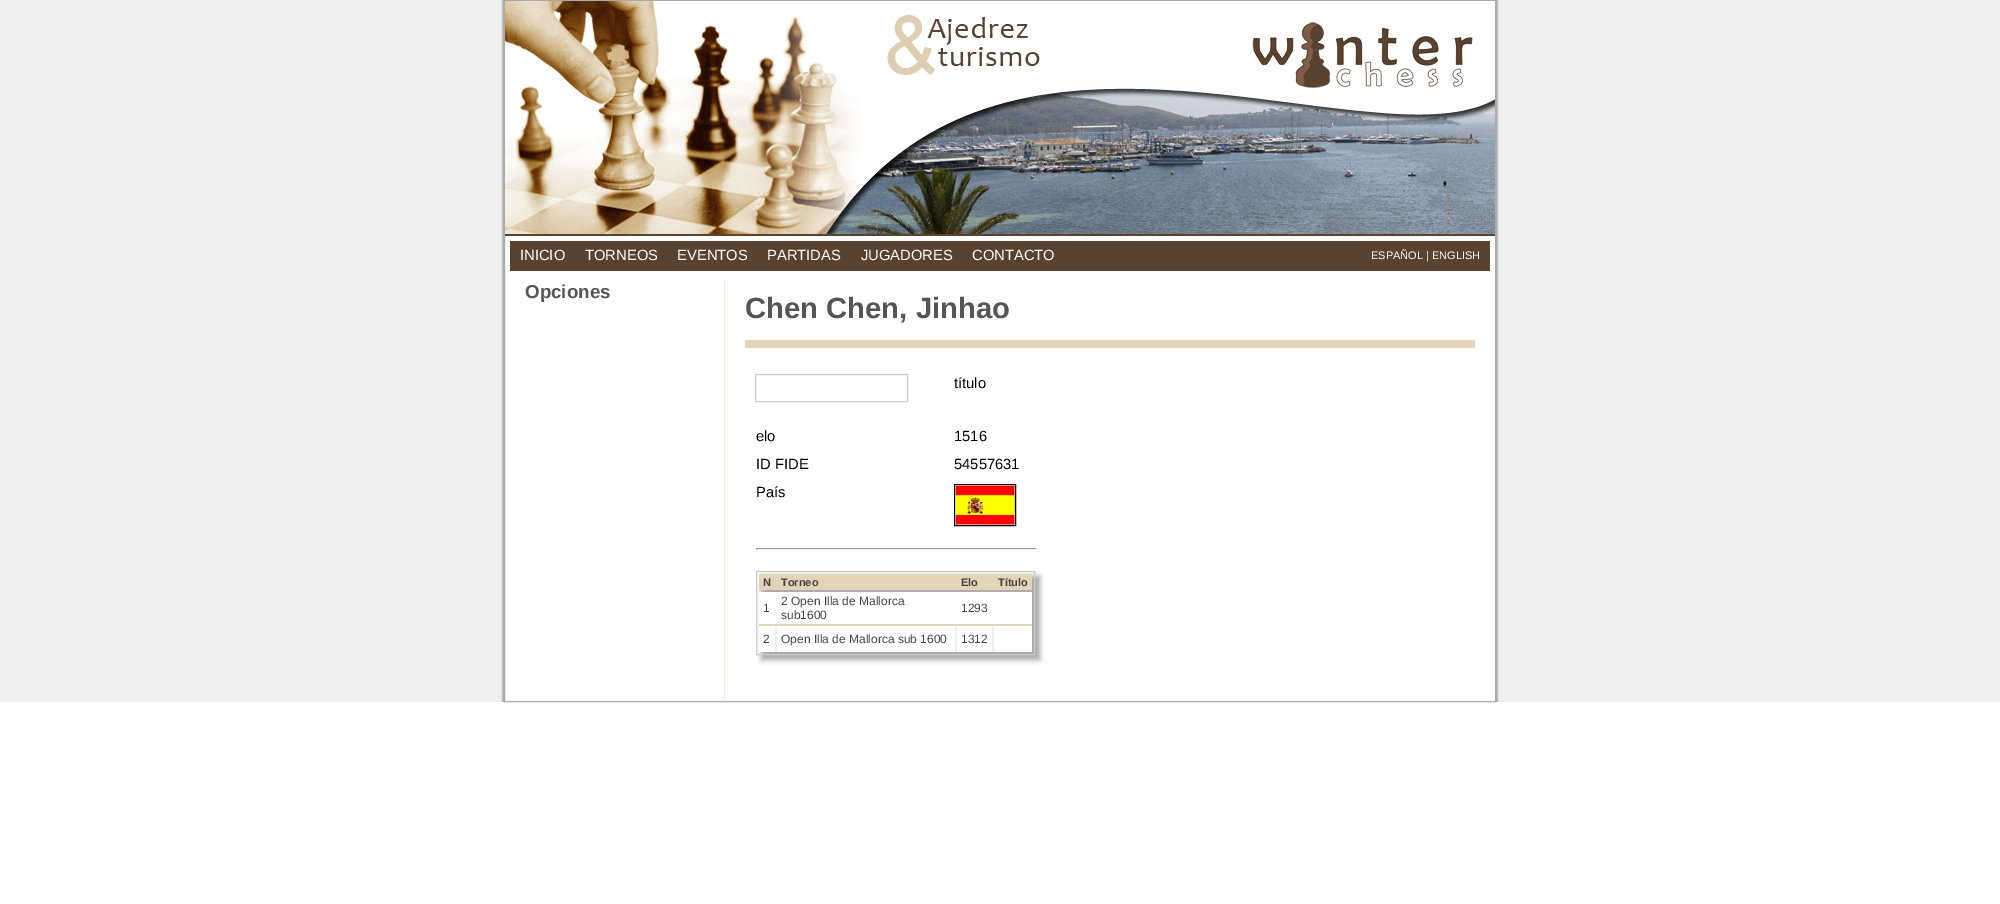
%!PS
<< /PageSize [2000 904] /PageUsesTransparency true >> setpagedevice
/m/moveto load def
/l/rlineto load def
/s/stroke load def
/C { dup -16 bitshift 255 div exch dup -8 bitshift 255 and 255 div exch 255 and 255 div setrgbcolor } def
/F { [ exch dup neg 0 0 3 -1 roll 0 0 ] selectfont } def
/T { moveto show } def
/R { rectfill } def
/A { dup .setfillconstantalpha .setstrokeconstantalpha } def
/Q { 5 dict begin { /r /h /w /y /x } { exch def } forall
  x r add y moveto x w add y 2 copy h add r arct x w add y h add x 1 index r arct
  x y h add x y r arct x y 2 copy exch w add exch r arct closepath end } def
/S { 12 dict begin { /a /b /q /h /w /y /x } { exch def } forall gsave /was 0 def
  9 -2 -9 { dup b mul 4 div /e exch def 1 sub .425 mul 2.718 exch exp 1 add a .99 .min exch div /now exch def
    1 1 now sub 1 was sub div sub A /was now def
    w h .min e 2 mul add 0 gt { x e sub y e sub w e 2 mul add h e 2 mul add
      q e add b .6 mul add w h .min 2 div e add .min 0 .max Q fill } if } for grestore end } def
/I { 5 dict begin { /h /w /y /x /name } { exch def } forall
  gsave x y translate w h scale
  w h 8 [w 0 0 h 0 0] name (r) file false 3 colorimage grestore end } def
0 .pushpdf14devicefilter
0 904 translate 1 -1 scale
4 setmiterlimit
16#FFFFFF C
0 0 2000 904 R
16#EFEFEF C
0 0 2000 702 R
(1.rgb) 501 0 998 702 I
16#AAAAAA C
504.5 .5 991 701 rectstroke
(2.rgb) 505 1 990 233 I
16#594230 C
505 234 990 2 R
(3.rgb) 1252 22 221 66 I
510 241 980 30 R
/LiberationSans-Regular 14.75 F
16#FFFFFF C
(INICIO) 520 260 T
(TORNEOS) 585 260 T
(EVENTOS) 677 260 T
(PARTIDAS) 767 260 T
(JUGADORES) 861 260 T
(CONTACTO) 972 260 T
/LiberationSans-Regular 11 F
(ESPAÑOL | ENGLISH) 1371 259 T
/LiberationSans-Bold 18.75 F
16#555555 C
(Opciones) 525 298 T
16#E3D4B7 C
[1 1] 0 setdash
724.5 281 m 0 420 l s
/LiberationSans-Bold 29.25 F
16#555555 C
(Chen Chen, Jinhao) 745 318 T
16#E3D4B7 C
745 340 730 8 R
16#CCCCCC C
[] 0 setdash
755.5 374.5 152 27 rectstroke
/LiberationSans-Regular 14.75 F
16#000000 C
(título) 954 388 T
(elo) 756 441 T
(1516) 954 441 T
(ID FIDE) 756 469 T
(54557631) 954 469 T
(País) 756 497 T
954.5 484.5 61 41 rectstroke
(4.rgb) 955 485 60 40 I
16#9F9F9F C
756 548 281 1 R
16#EEEEEE C
1036 548 1 2 R
756 549 281 1 R
16#9F9F9F C
756 548 1 2 R
16#AAAAAA C
761 576 279 84 0 2.5 1 S
16#CCCCCC C
756.5 571.5 278 83 rectstroke
16#E3D4B7 C
759 574 273 16 R
/LiberationSans-Bold 11 F
16#454545 C
(N) 763 586 T
(Torneo) 781 586 T
(Elo) 961 586 T
(Título) 998 586 T
16#E3D4B7 C
759 624 273 2 R
16#FFFFFF C
759 592 273 32 R
/LiberationSans-Regular 12 F
16#454545 C
(1) 763 612 T
(2 Open Illa de Mallorca) 781 605 T
(sub1600) 781 619 T
(1293) 961 612 T
16#EFEFEF C
775 626 219 26 R
16#FFFFFF C
759 626 16 26 R
16#454545 C
(2) 763 643 T
16#FFFFFF C
777 626 178 26 R
16#454545 C
(Open Illa de Mallorca sub 1600) 781 643 T
16#FFFFFF C
957 626 35 26 R
16#454545 C
(1312) 961 643 T
16#FFFFFF C
994 626 38 26 R
.poppdf14devicefilter showpage
